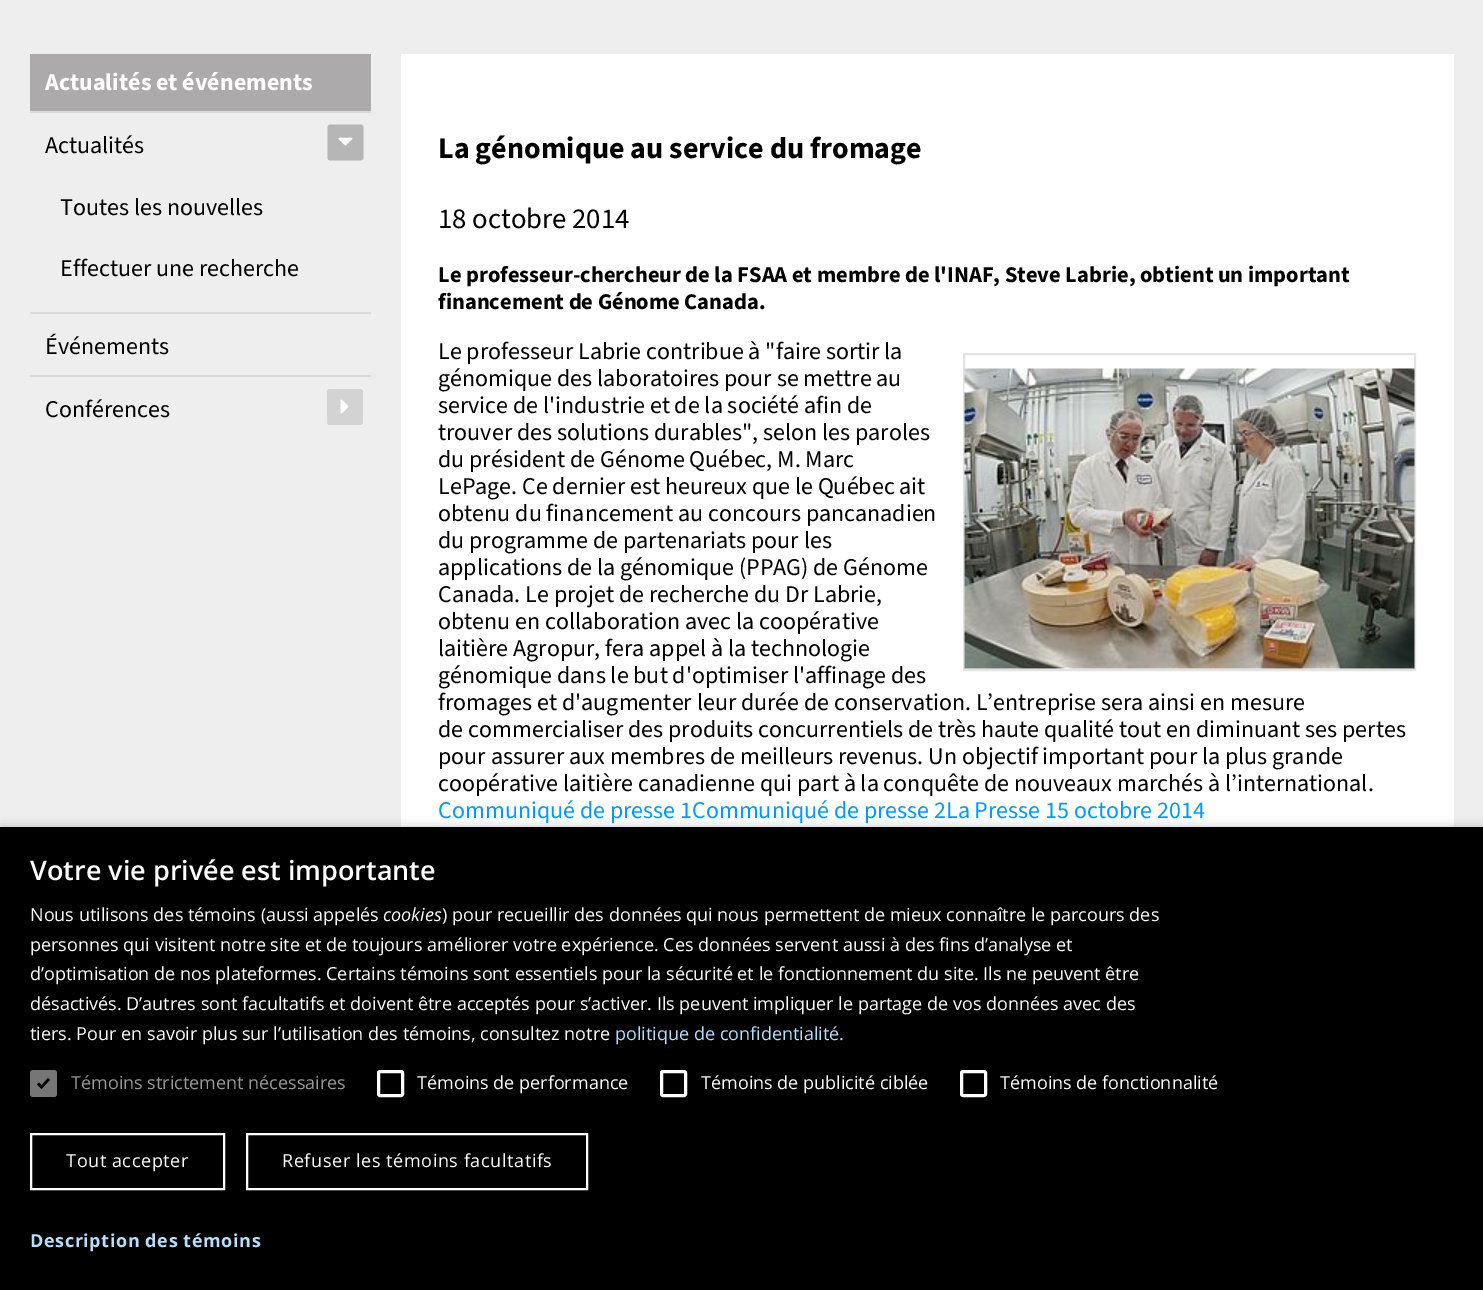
%!PS
<< /PageSize [1483 1290] /PageUsesTransparency true >> setpagedevice
/m/moveto load def
/l/rlineto load def
/c/rcurveto load def
/z/closepath load def
/f/fill load def
/s/stroke load def
/w/setlinewidth load def
/C { dup -16 bitshift 255 div exch dup -8 bitshift 255 and 255 div exch 255 and 255 div setrgbcolor } def
/F { [ exch dup neg 0 0 3 -1 roll 0 0 ] selectfont } def
/T { moveto show } def
/R { rectfill } def
/A { dup .setfillconstantalpha .setstrokeconstantalpha } def
/Q { 5 dict begin { /r /h /w /y /x } { exch def } forall
  x r add y moveto x w add y 2 copy h add r arct x w add y h add x 1 index r arct
  x y h add x y r arct x y 2 copy exch w add exch r arct closepath end } def
/S { 12 dict begin { /a /b /q /h /w /y /x } { exch def } forall gsave /was 0 def
  9 -2 -9 { dup b mul 4 div /e exch def 1 sub .425 mul 2.718 exch exp 1 add a .99 .min exch div /now exch def
    1 1 now sub 1 was sub div sub A /was now def
    w h .min e 2 mul add 0 gt { x e sub y e sub w e 2 mul add h e 2 mul add
      q e add b .6 mul add w h .min 2 div e add .min 0 .max Q fill } if } for grestore end } def
/I { 5 dict begin { /h /w /y /x /name } { exch def } forall
  gsave x y translate w h scale
  w h 8 [w 0 0 h 0 0] name (r) file false 3 colorimage grestore end } def
0 .pushpdf14devicefilter
0 1290 translate 1 -1 scale
4 setmiterlimit
16#EEEEEE C
0 0 1483 1290 R
16#ACAAAA C
30 54 341 57 R
/SourceSans3-Bold 24 F
16#FFFFFF C
(Actualités et événements) 45 90 T
16#D9D9D9 C
30 111 341 2 R
/SourceSans3-Regular 24 F
16#000000 C
(Actualités) 45 153 T
16#B6B6B6 C
363.5 127.5 m 0 30 l 0 1.5 -1.5 3 -3 3 c -30 0 l -2 0 -3 -1.5 -3 -3 c 0 -30 l 0 -1.5 1 -3 3 -3 c 30 0 l 1.5 0 3 1.5 3 3 c z f
(1.rgb) 338 137 15 9 I
16#000000 C
(Toutes les nouvelles) 60 215 T
(Effectuer une recherche) 60 276 T
16#D9D9D9 C
30 312 341 2 R
16#000000 C
(Événements) 45 354 T
16#D9D9D9 C
30 375 341 2 R
16#000000 C
(Conférences) 45 417 T
16#D3D3D3 C
327 389 36 36 3 Q f
(2.rgb) 340 399 9 15 I
16#FFFFFF C
401 54 1053 773 R
/SourceSans3-Bold 30 F
16#000000 C
(La génomique au service du fromage) 438 158 T
/SourceSans3-Regular 28.75 F
(18 octobre 2014) 438 228 T
/SourceSans3-Bold 22.5 F
(Le professeur-chercheur de la FSAA et membre de l'INAF, Steve Labrie, obtient un important) 438 282 T
(financement de Génome Canada.) 438 309 T
/SourceSans3-Regular 24 F
(Le professeur Labrie contribue à "faire sortir la) 438 359 T
(génomique des laboratoires pour se mettre au) 438 386 T
(service de l'industrie et de la société afin de) 438 413 T
(trouver des solutions durables", selon les paroles) 438 440 T
(du président de Génome Québec, M. Marc) 438 467 T
(LePage. Ce dernier est heureux que le Québec ait) 438 494 T
(obtenu du financement au concours pancanadien) 438 521 T
(du programme de partenariats pour les) 438 548 T
(applications de la génomique \(PPAG\) de Génome) 438 575 T
(Canada. Le projet de recherche du Dr Labrie,) 438 602 T
(obtenu en collaboration avec la coopérative) 438 629 T
(laitière Agropur, fera appel à la technologie) 438 656 T
(génomique dans le but d'optimiser l'affinage des) 438 683 T
(fromages et d'augmenter leur durée de conservation. L’entreprise sera ainsi en mesure) 438 710 T
(de commercialiser des produits concurrentiels de très haute qualité tout en diminuant ses pertes) 438 737 T
(pour assurer aux membres de meilleurs revenus. Un objectif important pour la plus grande) 438 764 T
(coopérative laitière canadienne qui part à la conquête de nouveaux marchés à l’international.) 438 791 T
16#0099FF C
(Communiqué de presse 1Communiqué de presse 2La Presse 15 octobre 2014) 438 818 T
16#E3E3E3 C
2 w
964 354 451 316 rectstroke
(3.rgb) 964 368 451 301 I
16#000000 C
2 830 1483 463 0 6 .35 S
0 827 1483 463 R
/OpenSans-SemiBold 27 F
16#FFFFFF C
(Votre vie privée est importante) 30 880 T
/OpenSans-Regular 18 F
(Nous utilisons des témoins \(aussi appelés) 30 921 T
/OpenSans-Italic 18 F
(cookies) 383 921 T
/OpenSans-Regular 18 F
(\) pour recueillir des données qui nous permettent de mieux connaître le parcours des) 442 921 T
(personnes qui visitent notre site et de toujours améliorer votre expérience. Ces données servent aussi à des fins d’analyse et) 30 951 T
(d’optimisation de nos plateformes. Certains témoins sont essentiels pour la sécurité et le fonctionnement du site. Ils ne peuvent être) 30 980 T
(désactivés. D’autres sont facultatifs et doivent être acceptés pour s’activer. Ils peuvent impliquer le partage de vos données avec des) 30 1010 T
(tiers. Pour en savoir plus sur l’utilisation des témoins, consultez notre) 30 1040 T
16#B2E0FF C
(politique de confidentialité.) 615 1040 T
16#767676 C
30 1070 27 27 3 Q f
16#000000 C
2.6 w
38 1083.5 m 3.5 3.5 l 7.5 -8 l s
16#999999 C
(Témoins strictement nécessaires) 71 1089 T
16#FFFFFF C
3 w
378.5 1071.5 24 24 1.5 Q s
(Témoins de performance) 417 1089 T
661.5 1071.5 24 24 1.5 Q s
(Témoins de publicité ciblée) 701 1089 T
961.5 1071.5 24 24 1.5 Q s
(Témoins de fonctionnalité) 1000 1089 T
2 w
31 1134 193 55 rectstroke
66 1167 m .6 0 (Tout accepter) ashow
247 1134 340 55 rectstroke
282 1167 m .6 0 (Refuser les témoins facultatifs) ashow
/OpenSans-Bold 18 F
16#B2E0FF C
30 1247 m .6 0 (Description des témoins) ashow
.poppdf14devicefilter showpage
